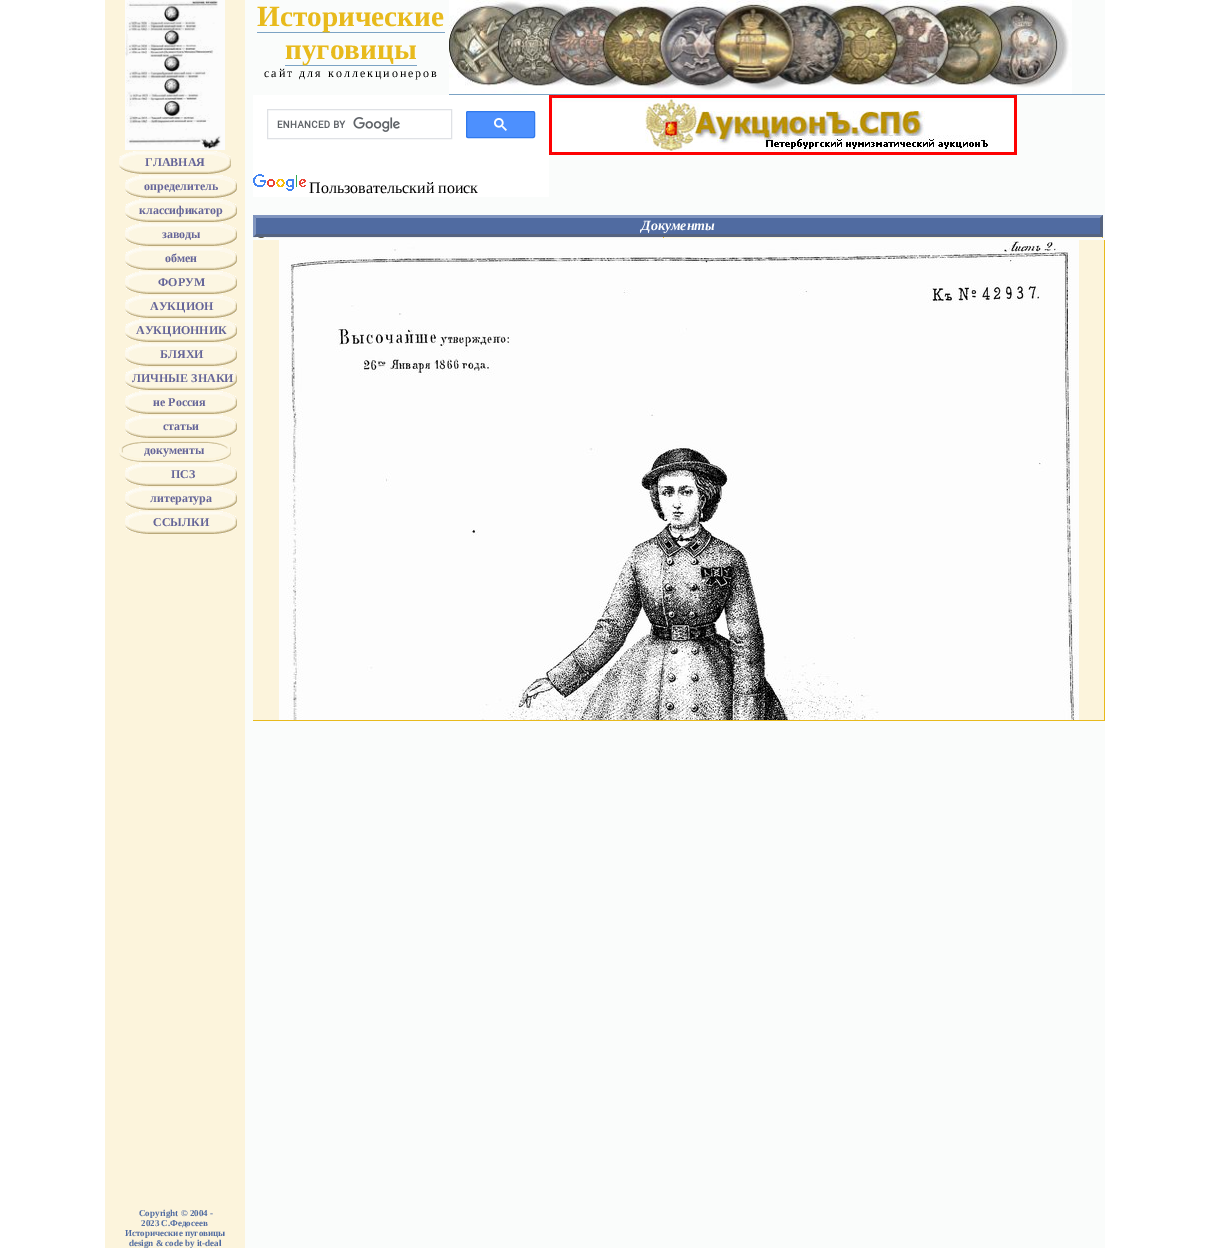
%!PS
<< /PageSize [1210 1248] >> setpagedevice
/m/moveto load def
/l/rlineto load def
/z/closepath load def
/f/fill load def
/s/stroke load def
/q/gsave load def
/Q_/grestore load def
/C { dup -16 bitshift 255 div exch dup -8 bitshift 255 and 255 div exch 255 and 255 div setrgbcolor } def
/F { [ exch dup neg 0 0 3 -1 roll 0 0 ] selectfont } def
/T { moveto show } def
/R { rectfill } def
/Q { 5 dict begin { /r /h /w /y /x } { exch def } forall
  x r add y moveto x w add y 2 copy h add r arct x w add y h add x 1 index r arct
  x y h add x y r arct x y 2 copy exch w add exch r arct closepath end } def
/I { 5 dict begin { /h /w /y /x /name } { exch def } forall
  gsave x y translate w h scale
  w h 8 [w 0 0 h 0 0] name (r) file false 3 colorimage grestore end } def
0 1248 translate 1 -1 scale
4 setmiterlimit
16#FFFFFF C
0 0 1210 1248 R
16#FAFCFB C
245 0 860 1248 R
16#7CA3C4 C
257 32 188 1 R
/LiberationSerif-Bold 29.25 F
16#E8BA1C C
(Исторические) 257 26 T
16#7CA3C4 C
285 65 132 1 R
16#E8BA1C C
(пуговицы) 285 59 T
/LiberationSerif-Regular 12 F
16#000000 C
264 77 m 2 0 (сайт для коллекционеров) ashow
16#7CA3C4 C
449 94 656 1 R
(1.rgb) 449 0 623 94 I
(2.rgb) 549 95 468 60 I
16#FFFFFF C
253 95 296 102 R
16#DFE1E5 C
267.5 109.5 184 29 rectstroke
(3.rgb) 277 117 123 15 I
16#4D90FE C
466.5 111.5 68 26 1.5 Q q f Q_
16#3079ED C
s
(4.rgb) 494 118 13 13 I
(5.rgb) 253 174 53 17 I
/LiberationSerif-Regular 16 F
16#000000 C
(Пользовательский поиск) 309 193 T
16#506BA1 C
253 215 850 22 R
16#8095BF C
253 215 m 850 0 l -3 3 l -844 0 l z f
16#55637F C
1103 215 m 0 22 l -3 -3 l 0 -16 l z f
1103 237 m -850 0 l 3 -3 l 844 0 l z f
16#8095BF C
253 237 m 0 -22 l 3 3 l 0 16 l z f
/LiberationSerif-BoldItalic 14 F
16#FFFFFF C
(Документы) 641 230 T
16#EEEEEE C
253 237 411 1 R
16#E8BA1C C
663 237 1 1 R
(6.rgb) 256 237 10 1 I
16#FCF4DC C
664 237 439 1 R
16#E8BA1C C
1102 237 1 1 R
16#FCF4DC C
253 240 851 480 R
16#E8BA1C C
1104 240 1 481 R
253 720 852 1 R
(7.rgb) 279 240 800 480 I
16#FCF4DC C
105 0 140 1248 R
(8.rgb) 125 0 100 150 I
(9.rgb) 119 151 112 23 I
/LiberationSerif-Bold 12 F
16#666699 C
(ГЛАВНАЯ) 145 166 T
(10.rgb) 125 175 112 23 I
(определитель) 144 190 T
(10.rgb) 125 199 112 23 I
(классификатор) 139 214 T
(10.rgb) 125 223 112 23 I
(заводы) 162 238 T
(10.rgb) 125 247 112 23 I
(обмен) 165 262 T
(10.rgb) 125 271 112 23 I
(ФОРУМ) 158 286 T
(10.rgb) 125 295 112 23 I
(АУКЦИОН) 150 310 T
(10.rgb) 125 319 112 23 I
(АУКЦИОННИК) 136 334 T
(10.rgb) 125 343 112 23 I
(БЛЯХИ) 160 358 T
(10.rgb) 125 367 112 23 I
(ЛИЧНЫЕ ЗНАКИ) 132 382 T
(10.rgb) 125 391 112 23 I
(не Россия) 153 406 T
(10.rgb) 125 415 112 23 I
(статьи) 163 430 T
(11.rgb) 119 439 112 23 I
(документы) 144 454 T
(10.rgb) 125 463 112 23 I
(ПСЗ) 171 478 T
(10.rgb) 125 487 112 23 I
(литература) 150 502 T
(10.rgb) 125 511 112 23 I
(ССЫЛКИ) 153 526 T
/LiberationSerif-Bold 9 F
16#506BA1 C
(Copyright © 2004 -) 139 1216 T
(2023 С.Федосеев) 141 1226 T
(Исторические пуговицы) 125 1236 T
(design & code by it-deal) 129 1246 T
showpage
